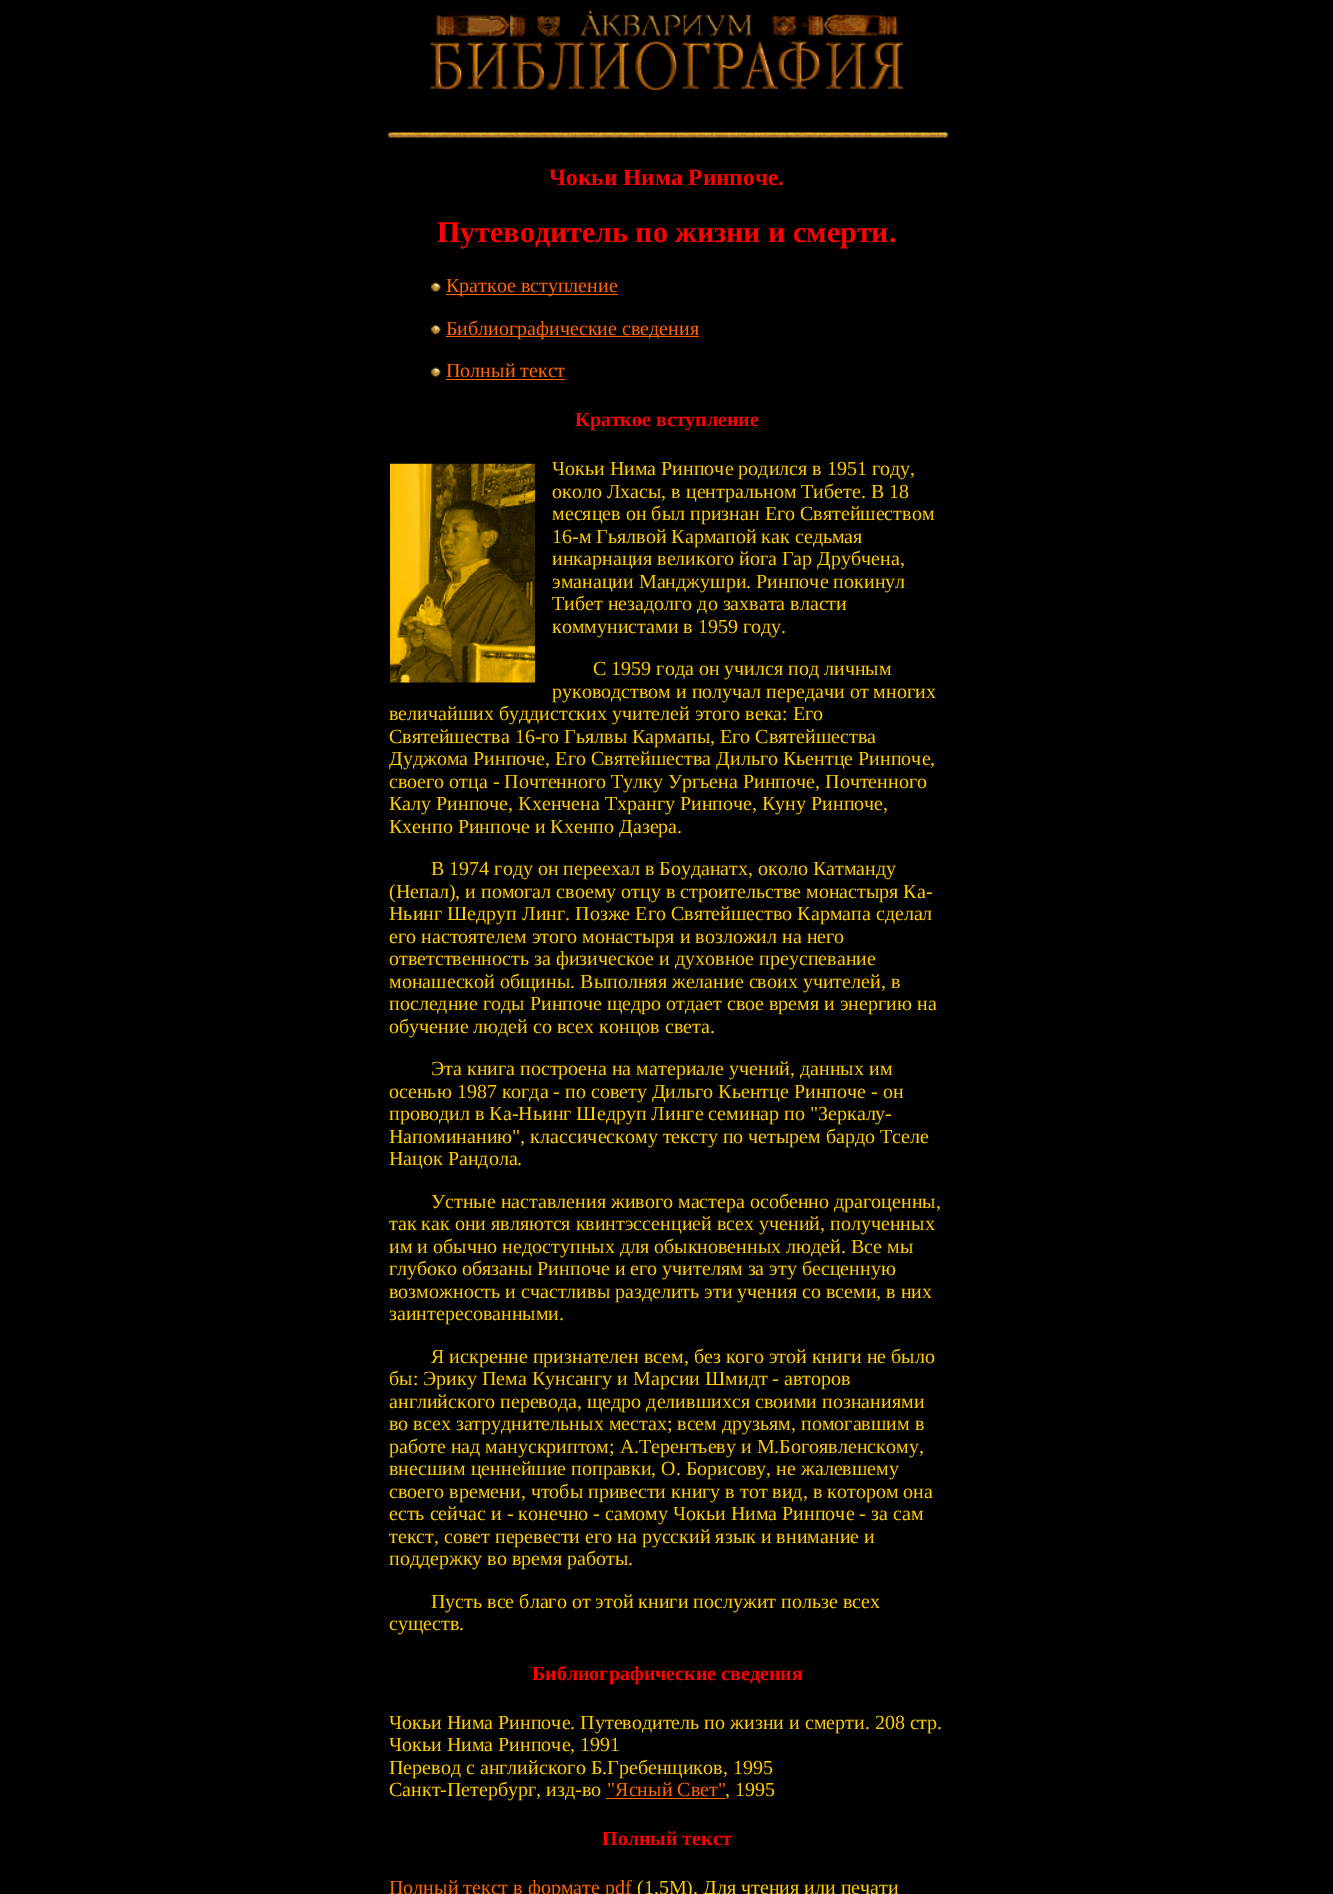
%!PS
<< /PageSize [1333 1894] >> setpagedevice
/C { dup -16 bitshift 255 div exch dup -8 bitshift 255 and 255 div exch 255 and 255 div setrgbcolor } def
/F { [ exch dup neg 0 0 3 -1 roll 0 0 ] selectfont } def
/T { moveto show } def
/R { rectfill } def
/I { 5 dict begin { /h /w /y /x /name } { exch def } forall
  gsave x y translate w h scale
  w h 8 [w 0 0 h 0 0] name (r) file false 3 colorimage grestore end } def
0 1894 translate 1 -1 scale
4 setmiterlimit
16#000000 C
0 0 1333 1894 R
(1.rgb) 436 10 462 28 I
(2.rgb) 430 41 474 49 I
(3.rgb) 387 132 562 6 I
/LiberationSerif-Bold 23.4 F
16#FF0000 C
(Чокьи Нима Ринпоче.) 549 185 T
/LiberationSerif-Bold 30 F
(Путеводитель по жизни и смерти.) 437 242 T
(4.rgb) 431 282 11 11 I
16#FF6600 C
446 294 172 1 R
/LiberationSerif-Regular 20 F
(Краткое вступление) 446 292 T
(5.rgb) 431 325 11 10 I
446 336 253 1 R
(Библиографические сведения) 446 335 T
(4.rgb) 431 367 11 11 I
(Полный текст) 446 377 T
446 379 119 1 R
/LiberationSerif-Bold 20 F
16#FF0000 C
(Краткое вступление) 575 426 T
(6.rgb) 390 463 146 220 I
/LiberationSerif-Regular 20 F
16#FFCC00 C
(Чокьи Нима Ринпоче родился в 1951 году,) 552 475 T
(около Лхасы, в центральном Тибете. В 18) 552 498 T
(месяцев он был признан Его Святейшеством) 552 520 T
(16-м Гьялвой Кармапой как седьмая) 552 543 T
(инкарнация великого йога Гар Друбчена,) 552 565 T
(эманации Манджушри. Ринпоче покинул) 552 588 T
(Тибет незадолго до захвата власти) 552 610 T
(коммунистами в 1959 году.) 552 633 T
(С 1959 года он учился под личным) 593 675 T
(руководством и получал передачи от многих) 552 698 T
(величайших буддистских учителей этого века: Его) 389 720 T
(Святейшества 16-го Гьялвы Кармапы, Его Святейшества) 389 743 T
(Дуджома Ринпоче, Его Святейшества Дильго Кьентце Ринпоче,) 389 765 T
(своего отца - Почтенного Тулку Ургьена Ринпоче, Почтенного) 389 788 T
(Калу Ринпоче, Кхенчена Тхрангу Ринпоче, Куну Ринпоче,) 389 810 T
(Кхенпо Ринпоче и Кхенпо Дазера.) 389 833 T
(В 1974 году он переехал в Боуданатх, около Катманду) 431 875 T
(\(Непал\), и помогал своему отцу в строительстве монастыря Ка-) 389 898 T
(Ньинг Шедруп Линг. Позже Его Святейшество Кармапа сделал) 389 920 T
(его настоятелем этого монастыря и возложил на него) 389 943 T
(ответственность за физическое и духовное преуспевание) 389 965 T
(монашеской общины. Выполняя желание своих учителей, в) 389 988 T
(последние годы Ринпоче щедро отдает свое время и энергию на) 389 1010 T
(обучение людей со всех концов света.) 389 1033 T
(Эта книга построена на материале учений, данных им) 431 1075 T
(осенью 1987 когда - по совету Дильго Кьентце Ринпоче - он) 389 1098 T
(проводил в Ка-Ньинг Шедруп Линге семинар по "Зеркалу-) 389 1120 T
(Напоминанию", классическому тексту по четырем бардо Тселе) 389 1143 T
(Нацок Рандола.) 389 1165 T
(Устные наставления живого мастера особенно драгоценны,) 431 1208 T
(так как они являются квинтэссенцией всех учений, полученных) 389 1230 T
(им и обычно недоступных для обыкновенных людей. Все мы) 389 1253 T
(глубоко обязаны Ринпоче и его учителям за эту бесценную) 389 1275 T
(возможность и счастливы разделить эти учения со всеми, в них) 389 1298 T
(заинтересованными.) 389 1320 T
(Я искренне признателен всем, без кого этой книги не было) 431 1363 T
(бы: Эрику Пема Кунсангу и Марсии Шмидт - авторов) 389 1385 T
(английского перевода, щедро делившихся своими познаниями) 389 1408 T
(во всех затруднительных местах; всем друзьям, помогавшим в) 389 1430 T
(работе над манускриптом; А.Терентьеву и М.Богоявленскому,) 389 1453 T
(внесшим ценнейшие поправки, О. Борисову, не жалевшему) 389 1475 T
(своего времени, чтобы привести книгу в тот вид, в котором она) 389 1498 T
(есть сейчас и - конечно - самому Чокьи Нима Ринпоче - за сам) 389 1520 T
(текст, совет перевести его на русский язык и внимание и) 389 1543 T
(поддержку во время работы.) 389 1565 T
(Пусть все благо от этой книги послужит пользе всех) 431 1608 T
(существ.) 389 1630 T
/LiberationSerif-Bold 20 F
16#FF0000 C
(Библиографические сведения) 532 1680 T
/LiberationSerif-Regular 20 F
16#FFCC00 C
(Чокьи Нима Ринпоче. Путеводитель по жизни и смерти. 208 стр.) 389 1729 T
(Чокьи Нима Ринпоче, 1991) 389 1751 T
(Перевод с английского Б.Гребенщиков, 1995) 389 1774 T
(Санкт-Петербург, изд-во) 389 1796 T
16#FF6600 C
("Ясный Свет") 607 1796 T
606 1798 119 1 R
16#FFCC00 C
(, 1995) 725 1796 T
/LiberationSerif-Bold 20 F
16#FF0000 C
(Полный текст) 602 1845 T
/LiberationSerif-Regular 20 F
16#FF6600 C
(Полный текст в формате pdf) 389 1894 T
16#FFCC00 C
(\(1,5M\). Для чтения или печати) 637 1894 T
showpage
